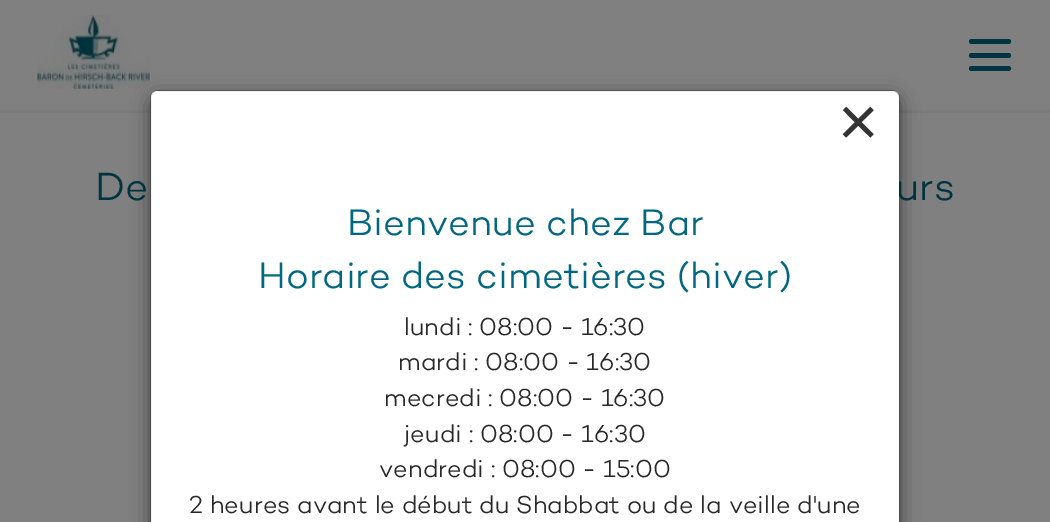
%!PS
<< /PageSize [1050 522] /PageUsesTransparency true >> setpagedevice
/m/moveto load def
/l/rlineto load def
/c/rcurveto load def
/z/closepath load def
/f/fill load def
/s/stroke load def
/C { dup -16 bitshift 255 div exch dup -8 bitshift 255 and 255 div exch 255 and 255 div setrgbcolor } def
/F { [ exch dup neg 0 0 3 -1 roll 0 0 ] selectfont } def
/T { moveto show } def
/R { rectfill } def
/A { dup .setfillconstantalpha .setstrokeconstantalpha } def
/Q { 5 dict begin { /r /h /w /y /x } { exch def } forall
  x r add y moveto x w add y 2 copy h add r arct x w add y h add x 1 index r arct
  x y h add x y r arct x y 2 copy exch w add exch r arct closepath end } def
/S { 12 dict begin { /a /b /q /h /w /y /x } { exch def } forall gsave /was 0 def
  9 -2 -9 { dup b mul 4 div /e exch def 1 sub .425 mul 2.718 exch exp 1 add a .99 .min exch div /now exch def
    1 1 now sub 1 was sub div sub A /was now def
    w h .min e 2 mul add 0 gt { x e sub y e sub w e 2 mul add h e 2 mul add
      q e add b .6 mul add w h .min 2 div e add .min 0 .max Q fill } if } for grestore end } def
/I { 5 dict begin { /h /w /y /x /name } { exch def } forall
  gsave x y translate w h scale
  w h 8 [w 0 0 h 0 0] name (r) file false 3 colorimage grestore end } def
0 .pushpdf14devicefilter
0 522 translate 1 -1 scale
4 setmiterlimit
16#808080 C
0 0 1050 522 R
16#7B7B7B C
0 110 1050 3 R
(1.rgb) 37 15 113 74 I
16#000000 C
150 96 750 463 8 9.5 .5 S
/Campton-Light 40 F
16#003441 C
(urs) 896 200 T
16#FFFFFF C
157 91 m 736 0 l 3.5 0 6 2.5 6 6 c 0 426 l -748 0 l 0 -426 l 0 -3.5 2.5 -6 6 -6 c z f
0.2 A
16#000000 C
150.5 90.5 749 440 7.5 Q s
/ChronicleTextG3-Regular 81 F
1 A
16#333333 C
(×) 837 147 T
/Campton-Light 37.5 F
16#006782 C
(Bienvenue chez Bar) 347 235 T
(Horaire des cimetières \(hiver\)) 258 288 T
/Campton-Light 25 F
16#292929 C
(lundi : 08:00 - 16:30) 404 335 T
(mardi : 08:00 - 16:30) 398 370 T
(mecredi : 08:00 - 16:30) 384 406 T
(jeudi : 08:00 - 16:30) 404 442 T
(vendredi : 08:00 - 15:00) 379 477 T
(2 heures avant le début du Shabbat ou de la veille d'une) 189 513 T
16#003441 C
969 39 42 5 2.5 Q f
969 53 42 5 2.5 Q f
969 66 42 5 2.5 Q f
/Campton-Light 40 F
(De) 95 200 T
.poppdf14devicefilter showpage
